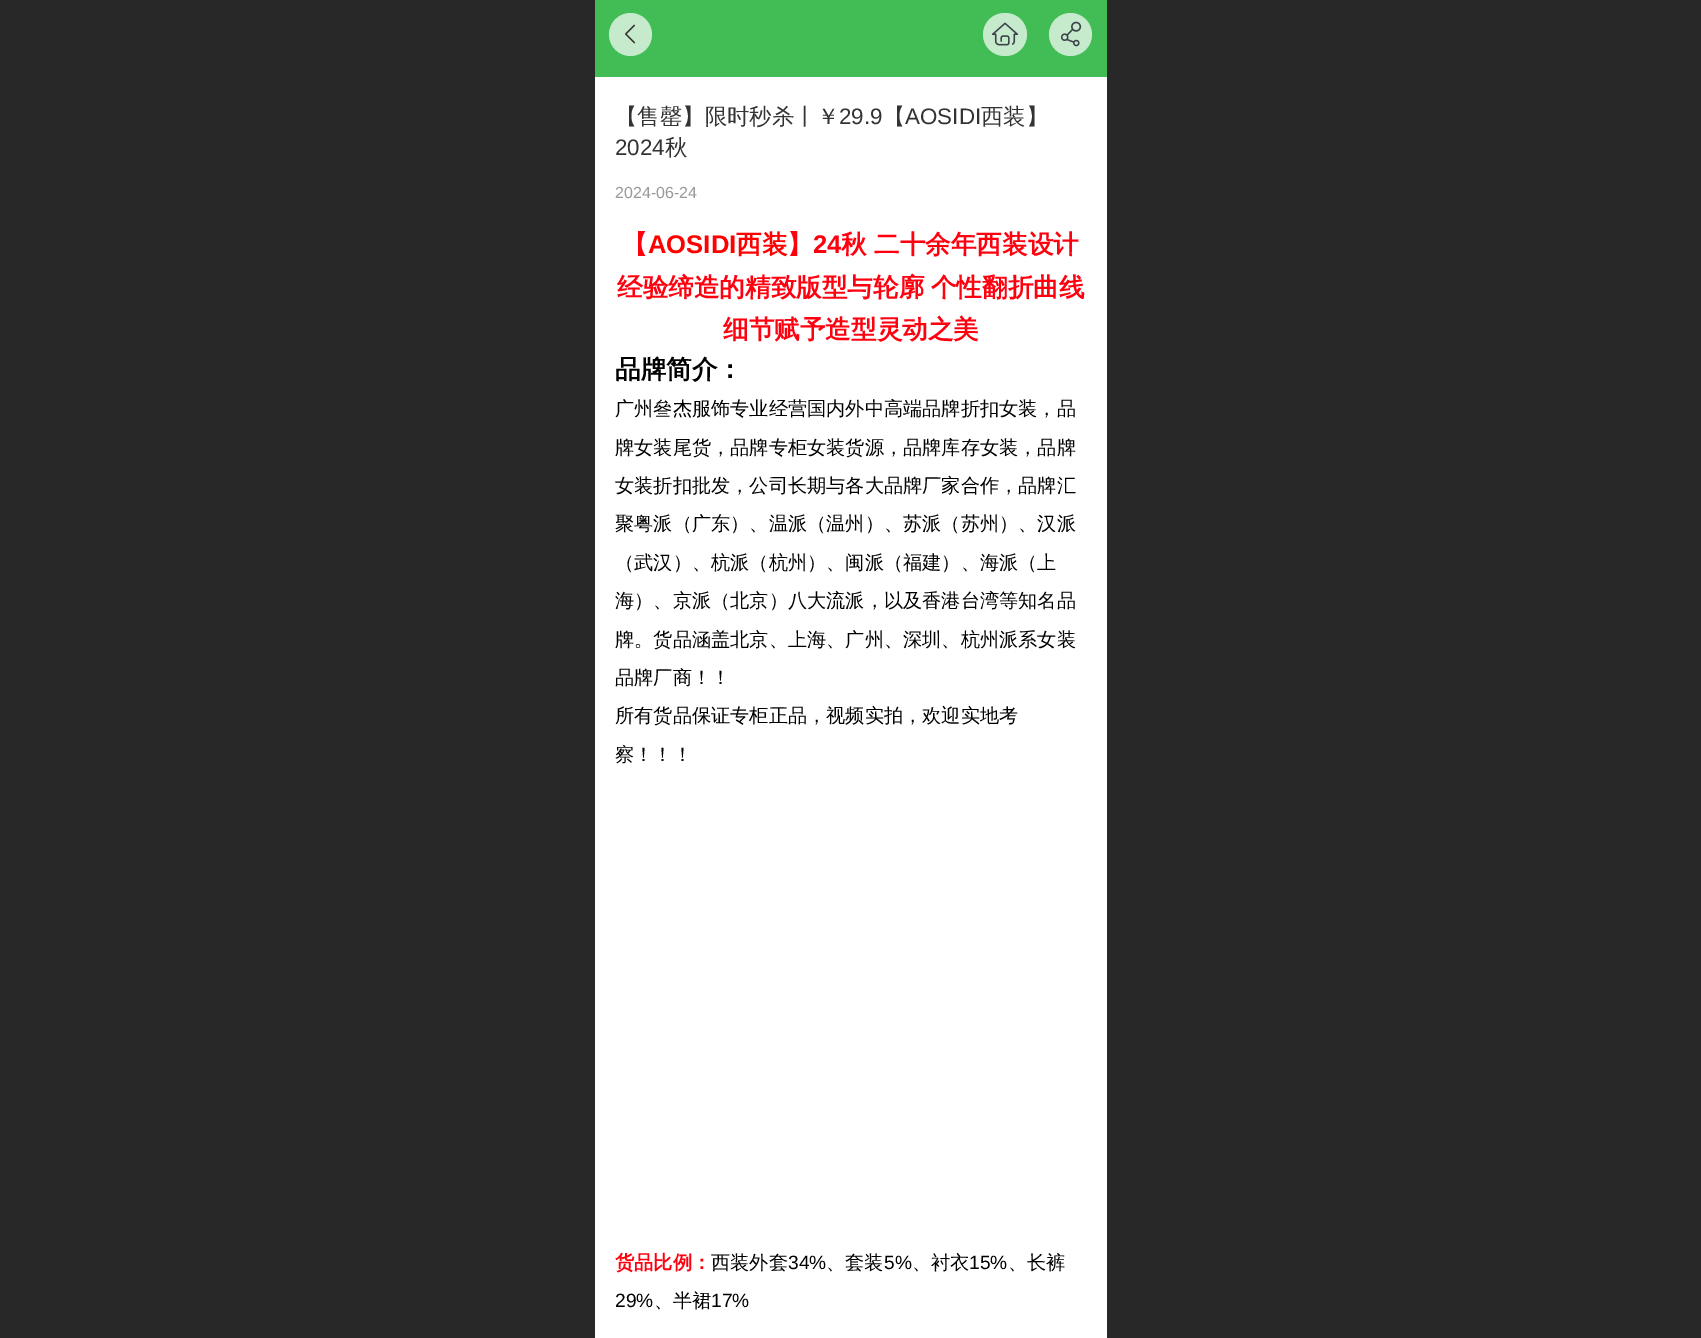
%!PS
<< /PageSize [1701 1338] >> setpagedevice
/m/moveto load def
/f/fill load def
/C { dup -16 bitshift 255 div exch dup -8 bitshift 255 and 255 div exch 255 and 255 div setrgbcolor } def
/F { [ exch dup neg 0 0 3 -1 roll 0 0 ] selectfont } def
/T { moveto show } def
/R { rectfill } def
/O { newpath 0 360 arc closepath } def
/Q { 5 dict begin { /r /h /w /y /x } { exch def } forall
  x r add y moveto x w add y 2 copy h add r arct x w add y h add x 1 index r arct
  x y h add x y r arct x y 2 copy exch w add exch r arct closepath end } def
/I { 5 dict begin { /h /w /y /x /name } { exch def } forall
  gsave x y translate w h scale
  w h 8 [w 0 0 h 0 0] name (r) file false 3 colorimage grestore end } def
0 1338 translate 1 -1 scale
4 setmiterlimit
16#FFFFFF C
0 0 1701 1338 R
16#282828 C
0 0 595 1338 R
16#42BD56 C
595 0 512 77 R
16#C6EBCC C
630.5 34.5 21.5 O f
(1.rgb) 625 24 11 20 I
983 13 44 43 21.5 Q f
(2.rgb) 991 22 28 24 I
1070.5 34.5 21.5 O f
(3.rgb) 1060 21 22 26 I
/WenQuanYiZenHei-Medium 22.4 F
16#333333 C
(【售罄】限时秒杀丨￥) 615 124 T
/LiberationSans-Regular 22.4 F
(29.9) 839 124 T
/WenQuanYiZenHei-Medium 22.4 F
(【) 883 124 T
/LiberationSans-Regular 22.4 F
(AOSIDI) 905 124 T
/WenQuanYiZenHei-Medium 22.4 F
(西装】) 981 124 T
/LiberationSans-Regular 22.4 F
(2024) 615 155 T
/WenQuanYiZenHei-Medium 22.4 F
(秋) 665 155 T
/LiberationSans-Regular 16 F
16#999999 C
(2024-06-24) 615 198 T
/WenQuanYiZenHei-Bold 25.6 F
16#FF000F C
(【) 622 253 T
/LiberationSans-Bold 25.6 F
16#FF0000 C
(AOSIDI) 648 253 T
/WenQuanYiZenHei-Bold 25.6 F
(西装) 736 253 T
16#FF000F C
(】) 787 253 T
/LiberationSans-Bold 25.6 F
(24) 813 253 T
/WenQuanYiZenHei-Bold 25.6 F
(秋) 841 253 T
(二十余年西装设计) 874 253 T
617 296 m -1 0 32 (经验缔造的精致版型与轮廓 个性翻折曲线) widthshow
(细节赋予造型灵动之美) 723 338 T
16#000000 C
(品牌简介：) 615 378 T
/WenQuanYiZenHei-Medium 19.2 F
(广州叄杰服饰专业经营国内外中高端品牌折扣女装，品) 615 415 T
(牌女装尾货，品牌专柜女装货源，品牌库存女装，品牌) 615 454 T
(女装折扣批发，公司长期与各大品牌厂家合作，品牌汇) 615 492 T
(聚粤派（广东）、温派（温州）、苏派（苏州）、汉派) 615 530 T
(（武汉）、杭派（杭州）、闽派（福建）、海派（上) 615 569 T
(海）、京派（北京）八大流派，以及香港台湾等知名品) 615 607 T
(牌。货品涵盖北京、上海、广州、深圳、杭州派系女装) 615 646 T
(品牌厂商！！) 615 684 T
(所有货品保证专柜正品，视频实拍，欢迎实地考) 615 722 T
(察！！！) 615 761 T
/WenQuanYiZenHei-Bold 19.2 F
16#FF000F C
(货品比例：) 615 1269 T
/WenQuanYiZenHei-Medium 19.2 F
16#000000 C
(西装外套) 711 1269 T
/LiberationSans-Regular 19.2 F
(34%) 788 1269 T
/WenQuanYiZenHei-Medium 19.2 F
(、套装) 826 1269 T
/LiberationSans-Regular 19.2 F
(5%) 884 1269 T
/WenQuanYiZenHei-Medium 19.2 F
(、衬衣) 912 1269 T
/LiberationSans-Regular 19.2 F
(15%) 969 1269 T
/WenQuanYiZenHei-Medium 19.2 F
(、长裤) 1008 1269 T
/LiberationSans-Regular 19.2 F
(29%) 615 1307 T
/WenQuanYiZenHei-Medium 19.2 F
(、半裙) 654 1307 T
/LiberationSans-Regular 19.2 F
(17%) 711 1307 T
16#282828 C
1107 0 594 1338 R
showpage
